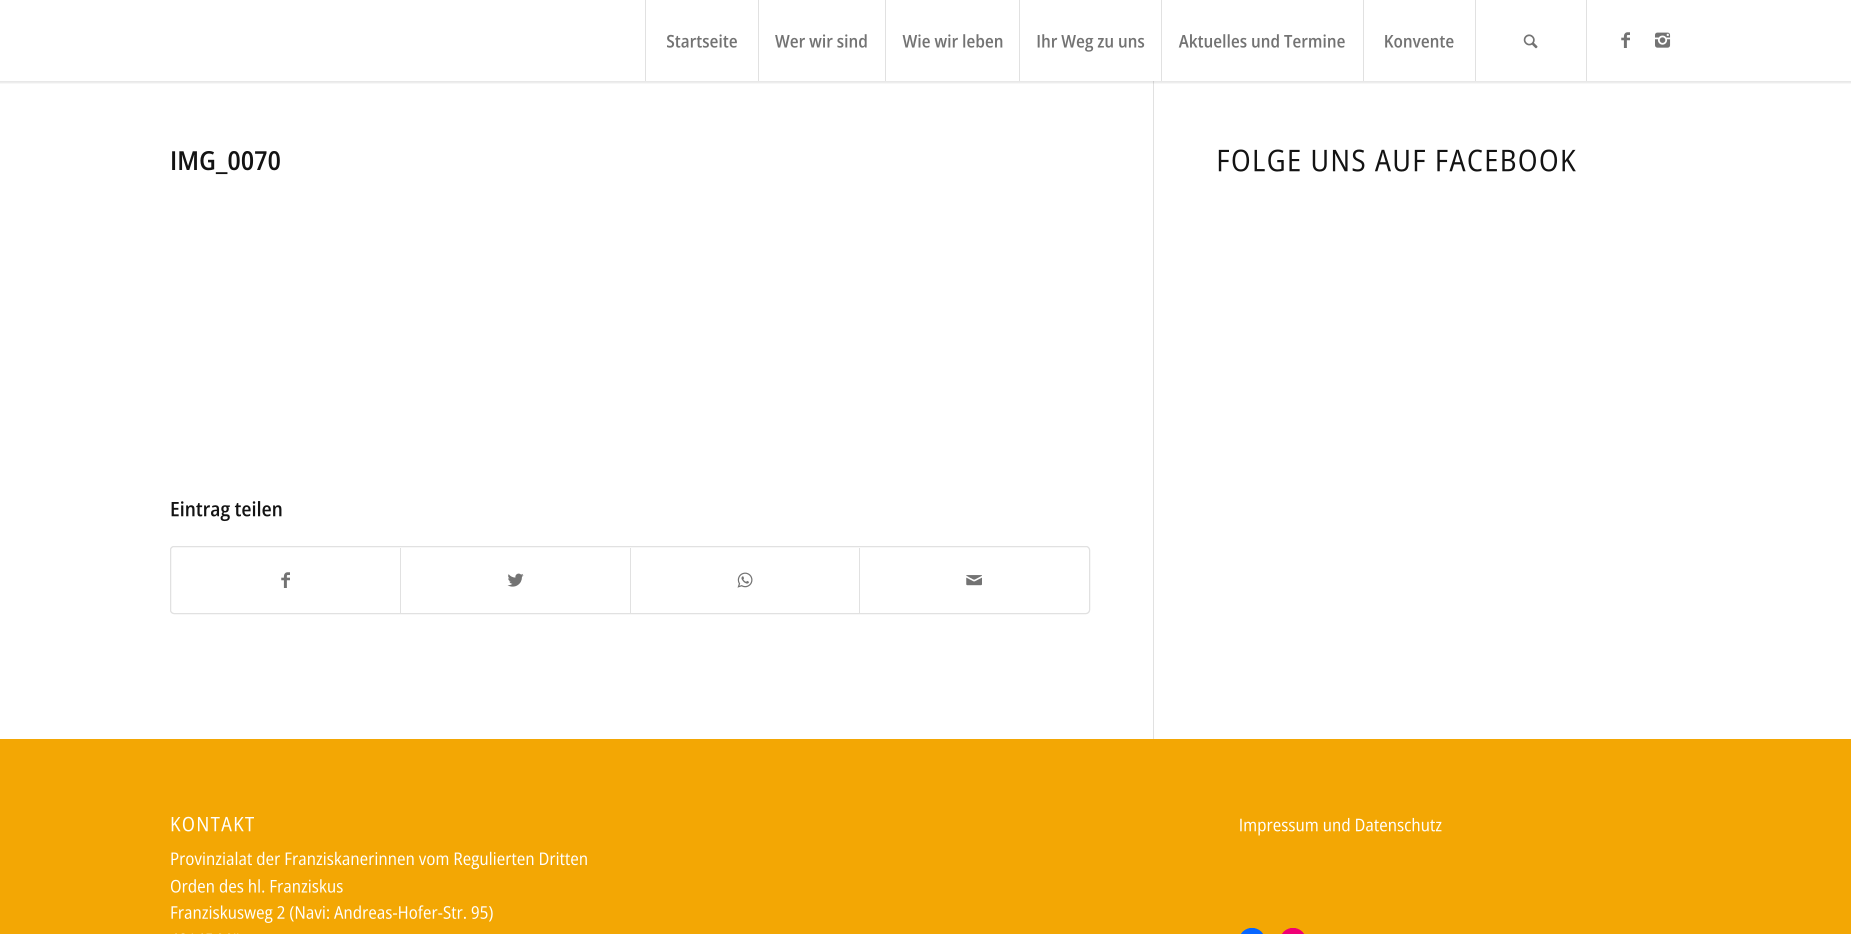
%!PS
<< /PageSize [1851 934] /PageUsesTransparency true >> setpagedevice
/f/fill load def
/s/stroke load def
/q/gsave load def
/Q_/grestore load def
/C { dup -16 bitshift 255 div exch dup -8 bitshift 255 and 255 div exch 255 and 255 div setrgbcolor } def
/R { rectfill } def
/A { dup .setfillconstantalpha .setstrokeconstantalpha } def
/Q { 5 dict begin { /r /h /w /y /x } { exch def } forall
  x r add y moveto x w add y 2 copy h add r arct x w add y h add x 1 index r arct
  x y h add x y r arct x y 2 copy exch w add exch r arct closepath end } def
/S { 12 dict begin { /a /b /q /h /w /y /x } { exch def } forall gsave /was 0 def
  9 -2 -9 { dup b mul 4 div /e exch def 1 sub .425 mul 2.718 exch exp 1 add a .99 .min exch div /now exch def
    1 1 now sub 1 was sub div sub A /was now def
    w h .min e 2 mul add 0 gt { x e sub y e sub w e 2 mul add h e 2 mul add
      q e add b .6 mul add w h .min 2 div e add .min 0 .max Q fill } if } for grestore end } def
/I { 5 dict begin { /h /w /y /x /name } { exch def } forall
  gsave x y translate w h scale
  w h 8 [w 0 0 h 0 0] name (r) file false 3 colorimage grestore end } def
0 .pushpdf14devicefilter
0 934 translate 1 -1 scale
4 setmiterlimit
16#FFFFFF C
0 0 1851 934 R
16#E1E1E1 C
1153 81 1 658 R
q
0 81 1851 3 rectclip
16#000000 C
-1 -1 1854 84 0 1 .1 S
Q_
645 0 1 81 R
(1.rgb) 667 34 70 14 I
758 0 1 81 R
(2.rgb) 775 34 92 14 I
885 0 1 81 R
(3.rgb) 902 34 101 14 I
1019 0 1 81 R
(4.rgb) 1037 34 108 18 I
1161 0 1 81 R
(5.rgb) 1178 34 167 14 I
1363 0 1 81 R
(6.rgb) 1385 35 69 13 I
1586 0 1 81 R
1475 0 1 81 R
(7.rgb) 1523 34 15 15 I
(8.rgb) 1621 32 9 16 I
(9.rgb) 1655 32 16 16 I
(10.rgb) 172 151 108 24 I
(11.rgb) 171 501 111 21 I
170.5 546.5 919 67 3.5 Q s
(8.rgb) 281 572 9 16 I
400 548 1 65 R
(12.rgb) 507 573 17 14 I
630 548 1 65 R
(13.rgb) 737 572 16 16 I
859 548 1 65 R
(14.rgb) 966 575 16 11 I
(15.rgb) 1218 149 358 23 I
16#F3A704 C
0 739 1851 195 R
(16.rgb) 171 816 83 16 I
(17.rgb) 171 851 416 19 I
(18.rgb) 171 879 172 14 I
(19.rgb) 171 905 322 18 I
(20.rgb) 175 933 64 1 I
(21.rgb) 1240 817 202 19 I
16#0866FF C
1239 928 26 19 13 Q f
16#F00075 C
1280 928 26 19 13 Q f
.poppdf14devicefilter showpage
